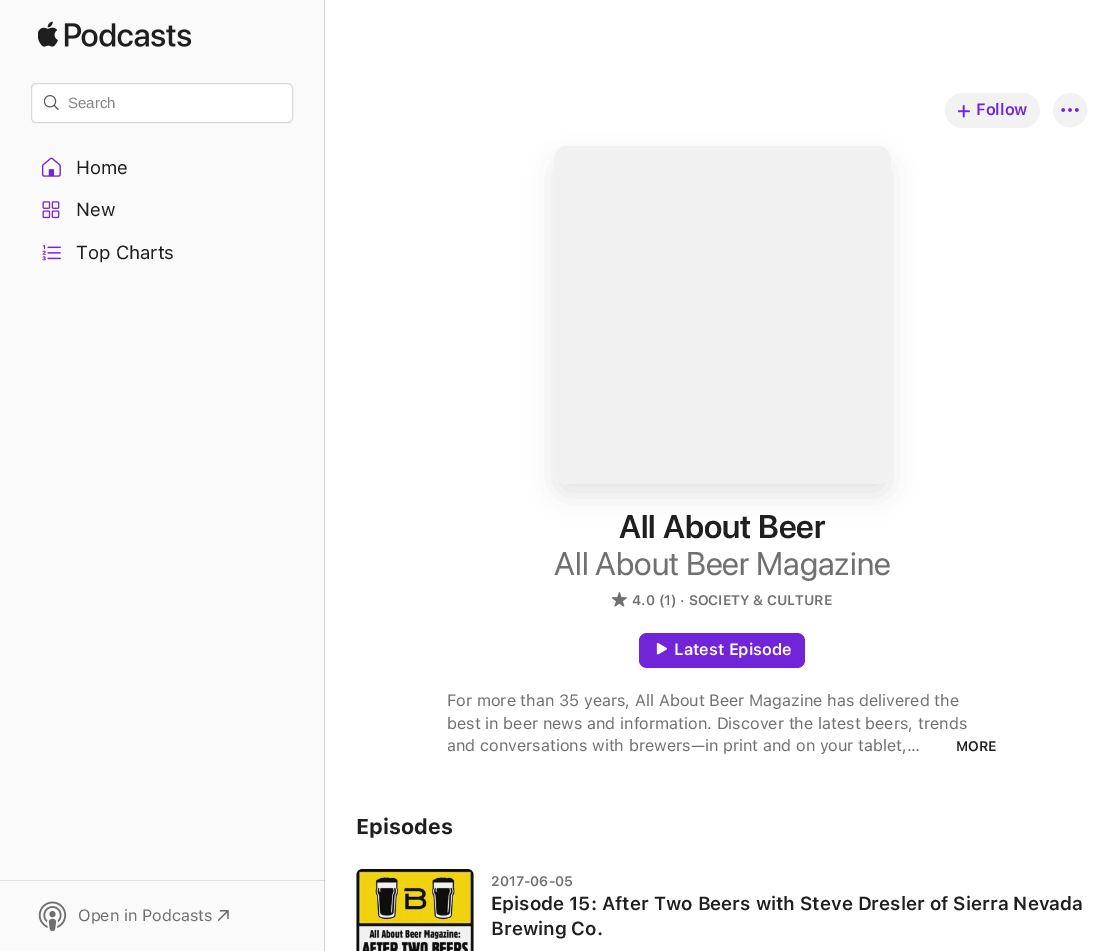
%!PS
<< /PageSize [1118 951] /PageUsesTransparency true >> setpagedevice
/m/moveto load def
/l/rlineto load def
/c/rcurveto load def
/z/closepath load def
/f/fill load def
/s/stroke load def
/q/gsave load def
/Q_/grestore load def
/C { dup -16 bitshift 255 div exch dup -8 bitshift 255 and 255 div exch 255 and 255 div setrgbcolor } def
/F { [ exch dup neg 0 0 3 -1 roll 0 0 ] selectfont } def
/T { moveto show } def
/R { rectfill } def
/A { dup .setfillconstantalpha .setstrokeconstantalpha } def
/Q { 5 dict begin { /r /h /w /y /x } { exch def } forall
  x r add y moveto x w add y 2 copy h add r arct x w add y h add x 1 index r arct
  x y h add x y r arct x y 2 copy exch w add exch r arct closepath end } def
/S { 12 dict begin { /a /b /q /h /w /y /x } { exch def } forall gsave /was 0 def
  9 -2 -9 { dup b mul 4 div /e exch def 1 sub .425 mul 2.718 exch exp 1 add a .99 .min exch div /now exch def
    1 1 now sub 1 was sub div sub A /was now def
    w h .min e 2 mul add 0 gt { x e sub y e sub w e 2 mul add h e 2 mul add
      q e add b .6 mul add w h .min 2 div e add .min 0 .max Q fill } if } for grestore end } def
/I { 5 dict begin { /h /w /y /x /name } { exch def } forall
  gsave x y translate w h scale
  w h 8 [w 0 0 h 0 0] name (r) file false 3 colorimage grestore end } def
0 .pushpdf14devicefilter
0 951 translate 1 -1 scale
4 setmiterlimit
16#FFFFFF C
0 0 1118 951 R
16#FAFAFA C
0 0 324 951 R
16#E1E1E1 C
0 880 325 1 R
16#D5D5D5 C
324 0 1 951 R
16#C0C0C0 C
324 880 1 1 R
(1.rgb) 38 21 153 26 I
16#FFFFFF C
31.5 83.5 261 39 4.5 Q q f Q_
16#D9D9D9 C
s
(2.rgb) 44 95 15 15 I
/LiberationSans-Regular 15 F
16#858585 C
(Search) 68 108 T
(3.rgb) 41 157 20 20 I
/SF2-Regular 18.75 F
16#1F1F1F C
(Home) 76 174 T
(4.rgb) 42 201 18 18 I
(New) 76 216 T
(5.rgb) 42 245 19 16 I
(Top Charts) 76 259 T
(6.rgb) 38 901 29 30 I
/SF2-Regular 16.25 F
16#707070 C
(Open in Podcasts) 78 921 T
(7.rgb) 218 910 11 11 I
16#F2F2F2 C
945 93 95 35 17.5 Q f
(8.rgb) 958 105 12 13 I
/SF-SemiBold 16.25 F
16#7224D8 C
(Follow) 976 115 T
(9.rgb) 1053 93 35 35 I
16#000000 C
554 159 337 337 13 12.5 .1 S
16#FEFEFE C
554 146 337 338 13 Q f
16#F1F1F1 C
567 146 m 311 0 l 7 0 13 6 13 13 c 0 312 l 0 7 -6 13 -13 13 c -311 0 l -7 0 -13 -6 -13 -13 c 0 -312 l 0 -7 6 -13 13 -13 c z f
/SF2-SemiBold 32.5 F
16#1F1F1F C
(All About Beer) 619 538 T
/SF-Regular 32.5 F
16#707070 C
(All About Beer Magazine) 554 575 T
(10.rgb) 611 592 16 15 I
/SF-SemiBold 13.75 F
(4.0 \(1\) · SOCIETY & CULTURE) 632 605 T
16#7224D8 C
639 633 166 35 8 Q f
(11.rgb) 656 643 11 12 I
/SF-SemiBold 16.25 F
16#FFFFFF C
(Latest Episode) 674 655 T
/SF2-Regular 16.25 F
16#707070 C
(For more than 35 years, All About Beer Magazine has delivered the) 447 706 T
(best in beer news and information. Discover the latest beers, trends) 447 729 T
q
448 690 550 68 rectclip
(and conversations with brewers—in print and on your tablet,…) 447 751 T
Q_
/SF-SemiBold 13.75 F
16#1F1F1F C
(MORE) 956 751 T
/SF-Bold 21.25 F
(Episodes) 356 834 T
16#D3D4D7 C
362 869 m 106 0 l 3.5 0 6 2.5 6 6 c 0 76 l -118 0 l 0 -76 l 0 -3.5 2.5 -6 6 -6 c z f
(12.rgb) 356 869 118 82 I
0.1 A
16#808080 C
362 869 m 106 0 l 3 0 6 3 6 6 c 0 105 l 0 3 -3 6 -6 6 c -106 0 l -3 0 -6 -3 -6 -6 c 0 -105 l 0 -3 3 -6 6 -6 c z f
/SF-SemiBold 13.75 F
1 A
16#707070 C
(2017-06-05) 491 886 T
/SF-SemiBold 18.75 F
16#1F1F1F C
(Episode 15: After Two Beers with Steve Dresler of Sierra Nevada) 491 910 T
(Brewing Co.) 491 935 T
.poppdf14devicefilter showpage
